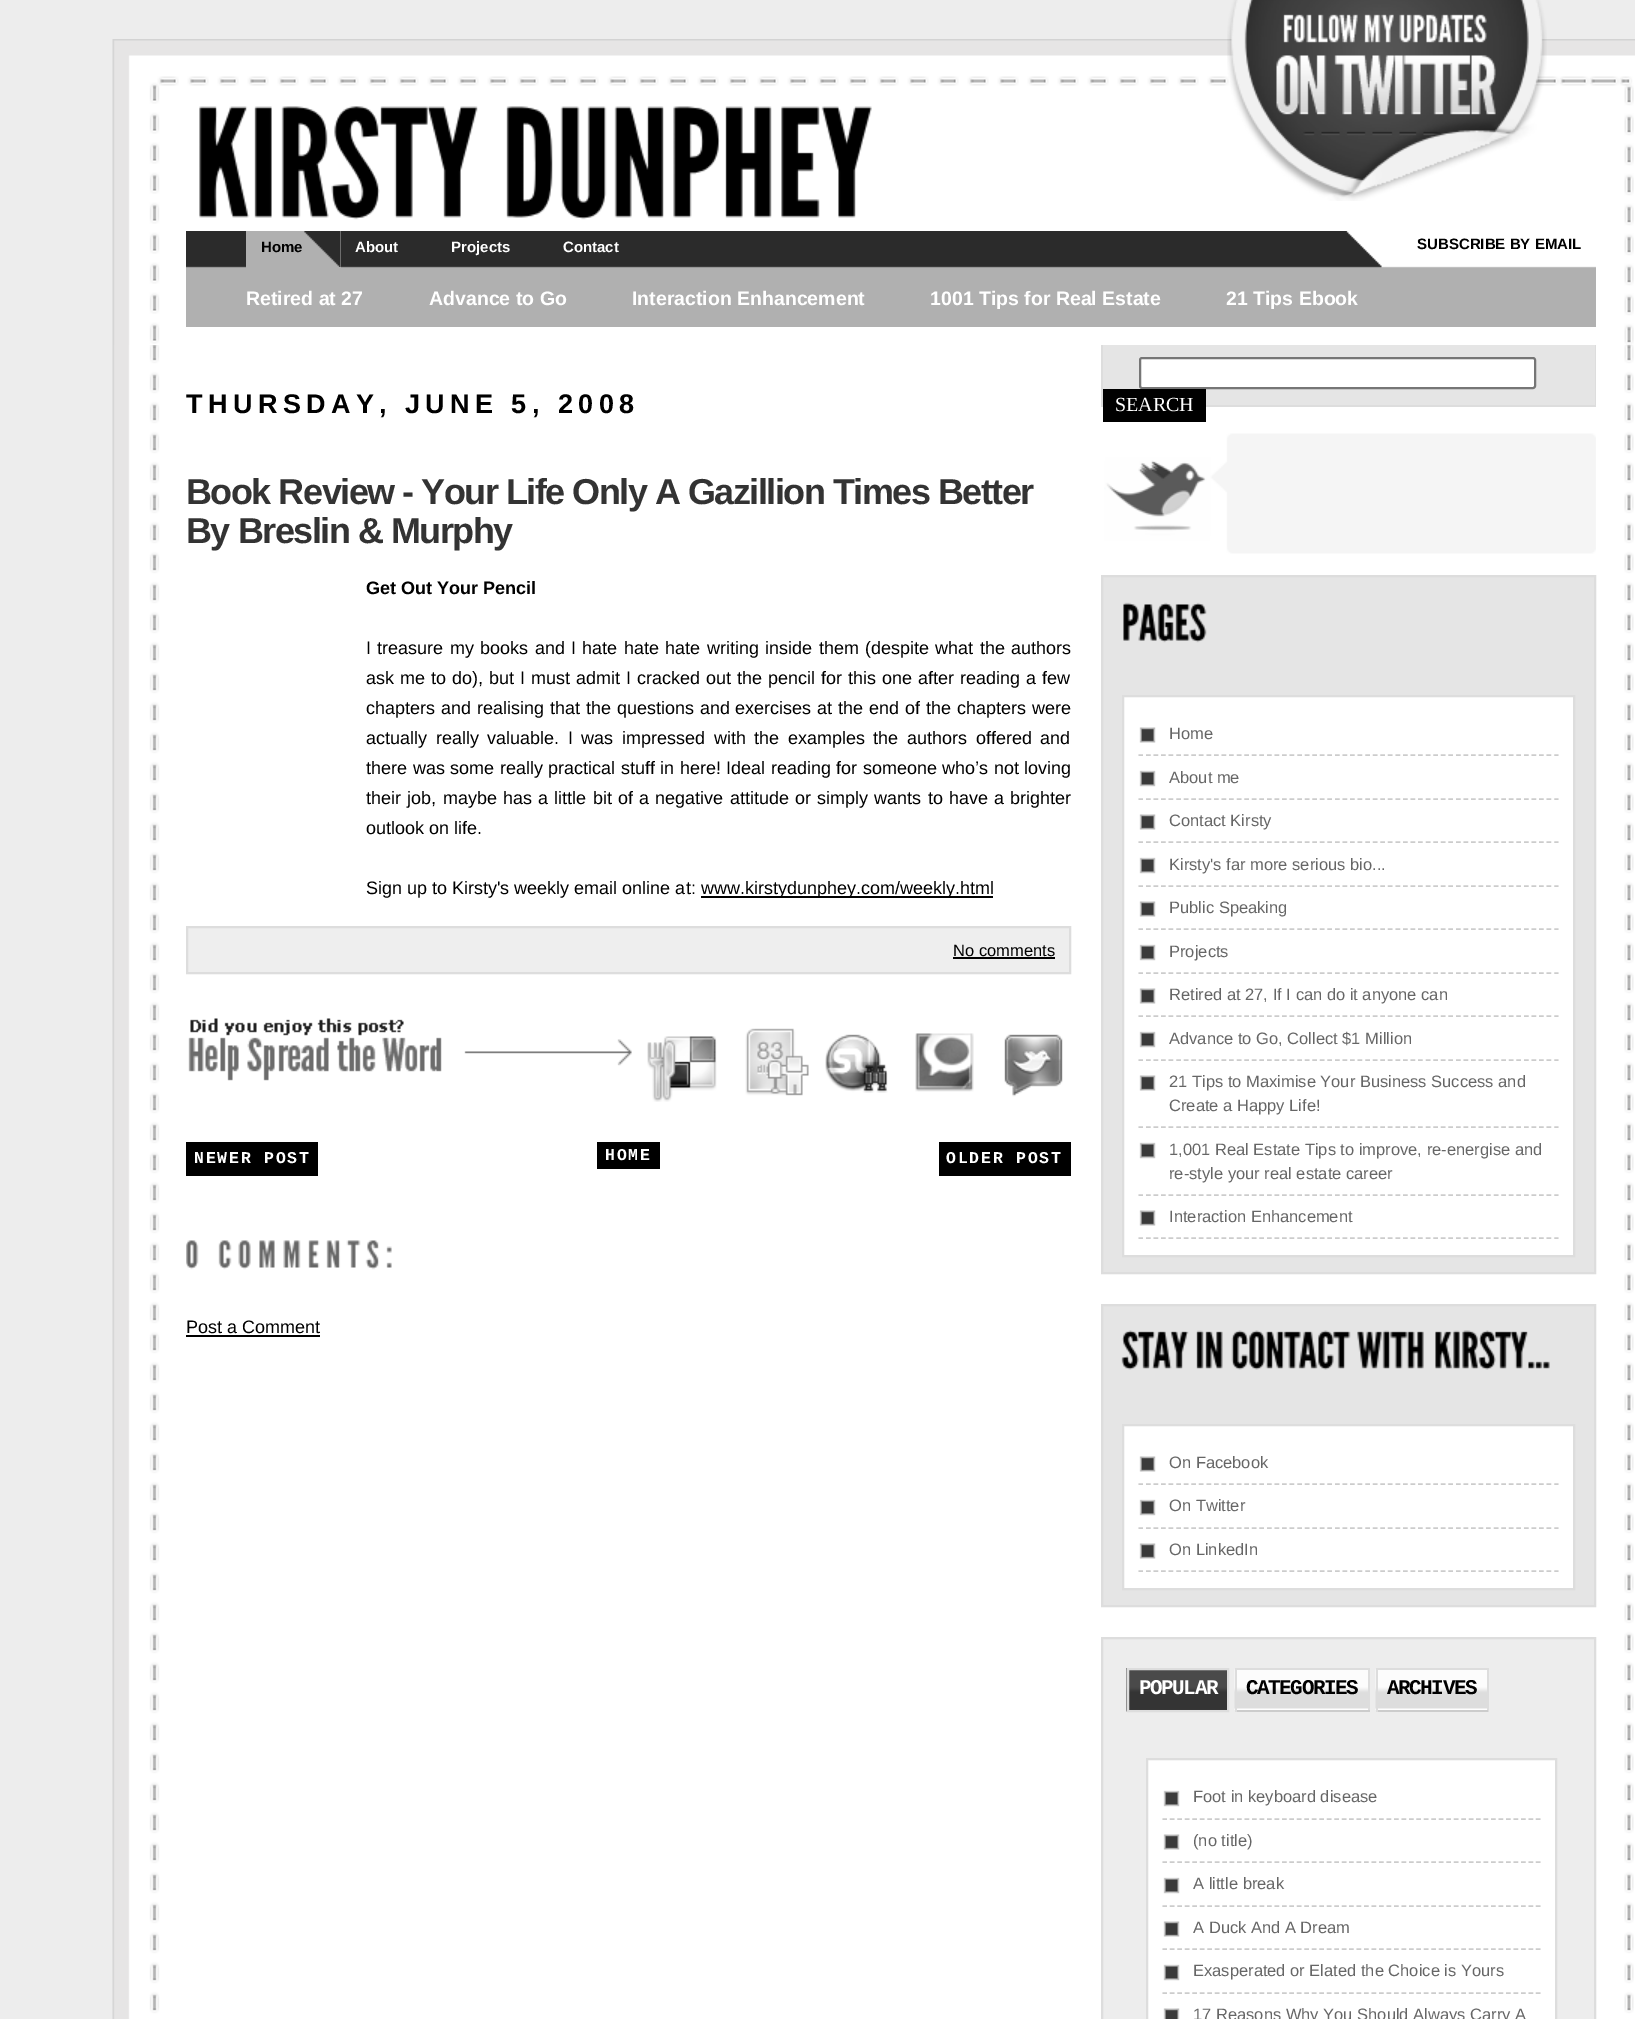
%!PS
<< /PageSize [1635 2019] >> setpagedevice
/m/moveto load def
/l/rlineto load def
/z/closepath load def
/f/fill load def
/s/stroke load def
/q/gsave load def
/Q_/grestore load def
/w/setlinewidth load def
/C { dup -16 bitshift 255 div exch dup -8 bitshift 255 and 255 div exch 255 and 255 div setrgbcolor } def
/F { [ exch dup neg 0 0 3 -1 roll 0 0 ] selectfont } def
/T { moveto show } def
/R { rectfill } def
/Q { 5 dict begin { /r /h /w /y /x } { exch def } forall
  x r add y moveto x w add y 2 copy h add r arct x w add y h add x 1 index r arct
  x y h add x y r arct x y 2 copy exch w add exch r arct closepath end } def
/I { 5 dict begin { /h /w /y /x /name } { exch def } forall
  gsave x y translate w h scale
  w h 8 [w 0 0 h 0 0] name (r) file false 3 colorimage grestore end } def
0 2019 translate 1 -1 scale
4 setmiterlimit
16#EDEDED C
0 0 1635 2019 R
(1.rgb) 112 39 1523 306 I
(2.rgb) 199 106 279 114 I
(3.rgb) 506 106 366 114 I
(4.rgb) 1227 0 320 201 I
(5.rgb) 186 231 1410 96 I
16#B0B0B0 C
246 231 95 37 R
(6.rgb) 304 231 37 36 I
/LiberationSans-Bold 15 F
16#000000 C
(Home) 261 252 T
16#FFFFFF C
(About) 355 252 T
(Projects) 451 252 T
(Contact) 563 252 T
16#000000 C
(SUBSCRIBE BY EMAIL) 1417 249 T
/LiberationSans-Bold 19.5 F
16#FFFFFF C
(Retired at 27) 246 305 T
(Advance to Go) 429 305 T
(Interaction Enhancement) 632 305 T
(1001 Tips for Real Estate) 930 305 T
(21 Tips Ebook) 1226 305 T
(7.rgb) 112 345 1523 1674 I
/LiberationSans-Bold 27 F
16#000000 C
186 413 m 5.4 0 (THURSDAY, JUNE 5, 2008) ashow
/LiberationSans-Bold 36 F
16#333333 C
186 504 m -1.5 0 (Book Review - Your Life Only A Gazillion Times Better) ashow
186 543 m -1.5 0 (By Breslin & Murphy) ashow
/LiberationSans-Bold 18 F
16#000000 C
(Get Out Your Pencil) 366 594 T
/LiberationSans-Regular 18 F
366 654 m 1.4 0 32 (I treasure my books and I hate hate hate writing inside them \(despite what the authors) widthshow
366 684 m 1 0 32 (ask me to do\), but I must admit I cracked out the pencil for this one after reading a few) widthshow
366 714 m .9 0 32 (chapters and realising that the questions and exercises at the end of the chapters were) widthshow
366 744 m 3.6 0 32 (actually really valuable. I was impressed with the examples the authors offered and) widthshow
366 774 m .5 0 32 (there was some really practical stuff in here! Ideal reading for someone who’s not loving) widthshow
366 804 m 1.25 0 32 (their job, maybe has a little bit of a negative attitude or simply wants to have a brighter) widthshow
(outlook on life.) 366 834 T
(Sign up to Kirsty's weekly email online at:) 366 894 T
701 896 292 2 R
(www.kirstydunphey.com/weekly.html) 701 894 T
16#EEEEEE C
187 927 m 883 0 l 0 46 l -883 0 l z q f Q_
16#DDDDDD C
2 w
s
/LiberationSans-Regular 16.5 F
16#000000 C
(No comments) 953 956 T
953 957 102 2 R
(8.rgb) 188 1018 444 63 I
(9.rgb) 647 1036 70 66 I
(10.rgb) 745 1028 64 68 I
(11.rgb) 825 1034 63 59 I
(12.rgb) 915 1033 59 59 I
(13.rgb) 1004 1034 59 63 I
186 1142 132 34 R
/LiberationMono-Bold 16.5 F
16#FFFFFF C
194 1163 m 1.75 0 (NEWER POST) ashow
16#000000 C
597 1142 63 27 R
16#FFFFFF C
605 1160 m 1.75 0 (HOME) ashow
16#000000 C
939 1142 132 34 R
16#FFFFFF C
946 1163 m 1.75 0 (OLDER POST) ashow
(14.rgb) 186 1240 13 30 I
(15.rgb) 218 1240 174 30 I
/LiberationSans-Regular 18 F
16#000000 C
(Post a Comment) 186 1333 T
186 1335 134 2 R
16#E5E5E5 C
1103 345 492 60 R
16#DDDDDD C
1595 345 1 62 R
1206 405 390 2 R
1101 345 2 62 R
16#FFFFFF C
1140 358 395 30 2 Q q f Q_
16#767676 C
s
16#000000 C
1103 389 103 33 R
/LiberationSerif-Regular 20 F
16#FFFFFF C
(SEARCH) 1115 411 T
(16.rgb) 1104 433 492 121 I
16#E5E5E5 C
1102 576 m 493 0 l 0 697 l -493 0 l z q f Q_
16#DDDDDD C
s
(17.rgb) 1123 602 84 41 I
16#FFFFFF C
1123 696 m 451 0 l 0 560 l -451 0 l z q f Q_
16#DDDDDD C
s
(18.rgb) 1139 727 17 16 I
16#CCCCCC C
1.5 w
[4.5 3.06] 0 setdash
1138.5 755 m 420 0 l s
/LiberationSans-Regular 16.5 F
16#666666 C
(Home) 1169 739 T
(19.rgb) 1139 770 17 17 I
16#CCCCCC C
1138.5 799 m 420 0 l s
16#666666 C
(About me) 1169 783 T
(18.rgb) 1139 814 17 16 I
16#CCCCCC C
1138.5 842 m 420 0 l s
16#666666 C
(Contact Kirsty) 1169 826 T
(19.rgb) 1139 857 17 17 I
16#CCCCCC C
1138.5 886 m 420 0 l s
16#666666 C
(Kirsty's far more serious bio...) 1169 870 T
(18.rgb) 1139 901 17 16 I
16#CCCCCC C
1138.5 929 m 420 0 l s
16#666666 C
(Public Speaking) 1169 913 T
(19.rgb) 1139 944 17 17 I
16#CCCCCC C
1138.5 973 m 420 0 l s
16#666666 C
(Projects) 1169 957 T
(18.rgb) 1139 988 17 16 I
16#CCCCCC C
1138.5 1016 m 420 0 l s
16#666666 C
(Retired at 27, If I can do it anyone can) 1169 1000 T
(19.rgb) 1139 1031 17 17 I
16#CCCCCC C
1138.5 1060 m 420 0 l s
16#666666 C
(Advance to Go, Collect $1 Million) 1169 1044 T
(18.rgb) 1139 1075 17 16 I
16#CCCCCC C
1138.5 1127 m 420 0 l s
16#666666 C
(21 Tips to Maximise Your Business Success and) 1169 1087 T
(Create a Happy Life!) 1169 1111 T
(19.rgb) 1139 1142 17 17 I
16#CCCCCC C
1138.5 1195 m 420 0 l s
16#666666 C
(1,001 Real Estate Tips to improve, re-energise and) 1169 1155 T
(re-style your real estate career) 1169 1179 T
(18.rgb) 1139 1210 17 16 I
16#CCCCCC C
1138.5 1238 m 420 0 l s
16#666666 C
(Interaction Enhancement) 1169 1222 T
16#E5E5E5 C
1102 1305 m 493 0 l 0 301 l -493 0 l z q f Q_
16#DDDDDD C
2 w
[] 0 setdash
s
(20.rgb) 1121 1330 68 40 I
(21.rgb) 1196 1330 27 39 I
(22.rgb) 1231 1330 120 40 I
(23.rgb) 1357 1330 67 39 I
(24.rgb) 1435 1330 115 40 I
16#FFFFFF C
1123 1425 m 451 0 l 0 164 l -451 0 l z q f Q_
16#DDDDDD C
s
(18.rgb) 1139 1456 17 16 I
16#CCCCCC C
1.5 w
[4.5 3.06] 0 setdash
1138.5 1484 m 420 0 l s
16#666666 C
(On Facebook) 1169 1468 T
(19.rgb) 1139 1499 17 17 I
16#CCCCCC C
1138.5 1528 m 420 0 l s
16#666666 C
(On Twitter) 1169 1511 T
(18.rgb) 1139 1543 17 16 I
16#CCCCCC C
1138.5 1571 m 420 0 l s
16#666666 C
(On LinkedIn) 1169 1555 T
16#EDEDED C
1102 1638 m 493 0 l 0 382 l -493 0 l z q f Q_
16#DDDDDD C
2 w
[] 0 setdash
s
(25.rgb) 1126 1668 101 44 I
1128 1669 100 42 rectstroke
/LiberationMono-Bold 21 F
16#FFFFFF C
1139 1694 m -1.5 0 (POPULAR) ashow
(26.rgb) 1234 1669 134 41 I
16#DDDDDD C
1235 1668 135 2 R
1368 1668 2 44 R
16#CCCCCC C
1235 1710 135 2 R
16#DDDDDD C
1235 1668 2 44 R
16#000000 C
1246 1694 m -1.5 0 (CATEGORIES) ashow
(27.rgb) 1375 1669 112 41 I
16#DDDDDD C
1376 1668 112 2 R
1487 1668 2 44 R
16#CCCCCC C
1376 1710 112 2 R
16#DDDDDD C
1376 1668 2 44 R
16#000000 C
1387 1694 m -1.5 0 (ARCHIVES) ashow
16#FFFFFF C
1147 1759 m 409 0 l 0 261 l -409 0 l z q f Q_
16#DDDDDD C
s
(19.rgb) 1163 1790 17 17 I
16#CCCCCC C
1.5 w
[4.5 2.97] 0 setdash
1162.5 1819 m 378 0 l s
/LiberationSans-Regular 16.5 F
16#666666 C
(Foot in keyboard disease) 1193 1802 T
(18.rgb) 1163 1834 17 16 I
16#CCCCCC C
1162.5 1862 m 378 0 l s
16#666666 C
(\(no title\)) 1193 1846 T
(19.rgb) 1163 1877 17 17 I
16#CCCCCC C
1162.5 1906 m 378 0 l s
16#666666 C
(A little break) 1193 1889 T
(18.rgb) 1163 1921 17 16 I
16#CCCCCC C
1162.5 1949 m 378 0 l s
16#666666 C
(A Duck And A Dream) 1193 1933 T
(19.rgb) 1163 1964 17 17 I
16#CCCCCC C
1162.5 1993 m 378 0 l s
16#666666 C
(Exasperated or Elated the Choice is Yours) 1193 1976 T
(28.rgb) 1163 2008 17 11 I
(17 Reasons Why You Should Always Carry A) 1193 2020 T
showpage
